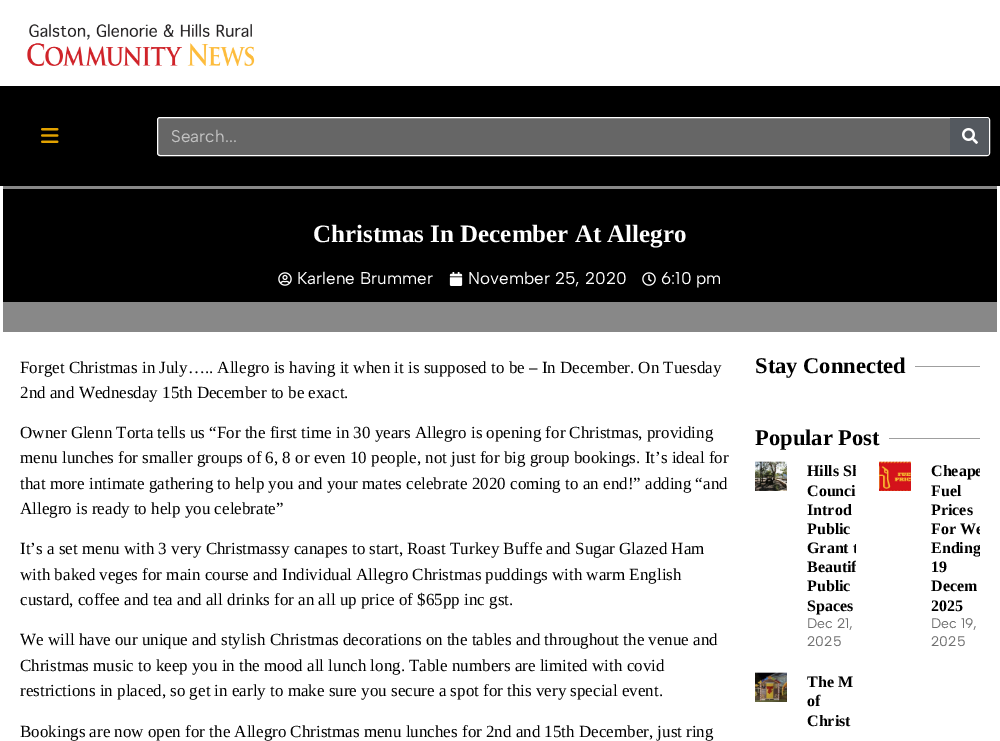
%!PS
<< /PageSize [1000 741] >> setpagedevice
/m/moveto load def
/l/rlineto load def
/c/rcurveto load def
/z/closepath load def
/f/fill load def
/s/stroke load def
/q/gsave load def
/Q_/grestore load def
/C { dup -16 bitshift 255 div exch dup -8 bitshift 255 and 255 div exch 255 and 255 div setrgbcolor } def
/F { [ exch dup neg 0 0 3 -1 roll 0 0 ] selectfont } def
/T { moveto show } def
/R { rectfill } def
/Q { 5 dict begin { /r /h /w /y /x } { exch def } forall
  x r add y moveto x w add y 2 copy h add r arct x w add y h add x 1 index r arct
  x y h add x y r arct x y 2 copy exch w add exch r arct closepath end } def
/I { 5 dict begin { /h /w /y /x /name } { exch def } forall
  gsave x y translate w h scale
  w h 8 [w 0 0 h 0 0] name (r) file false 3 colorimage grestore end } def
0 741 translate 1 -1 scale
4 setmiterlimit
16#FFFFFF C
0 0 1000 741 R
(1.rgb) 27 23 228 43 I
16#000000 C
0 86 1000 100 R
(2.rgb) 41 128 18 15 I
16#666666 C
157.5 117.5 832 38 2.5 Q q f Q_
16#FFFFFF C
s
/AlbertSans-Regular 17 F
16#C2C2C2 C
(Search...) 171 142 T
16#54595F C
950 118 m 37 0 l 1 0 2 1 2 2 c 0 33 l 0 1 -1 2 -2 2 c -37 0 l z f
(3.rgb) 962 128 16 16 I
16#888888 C
3 186 994 146 R
16#000000 C
3 189 994 113 R
/LiberationSerif-Bold 25 F
16#FFFFFF C
(Christmas In December At Allegro) 313 242 T
(4.rgb) 278 272 14 14 I
/AlbertSans-Regular 17 F
(Karlene Brummer) 297 284 T
(5.rgb) 449 272 14 14 I
(November 25, 2020) 468 284 T
(6.rgb) 642 272 14 14 I
(6:10 pm) 661 284 T
/LiberationSerif-Regular 17 F
16#000000 C
(Forget Christmas in July….. Allegro is having it when it is supposed to be – In December. On Tuesday) 20 373 T
(2nd and Wednesday 15th December to be exact.) 20 398 T
(Owner Glenn Torta tells us “For the first time in 30 years Allegro is opening for Christmas, providing) 20 438 T
(menu lunches for smaller groups of 6, 8 or even 10 people, not just for big group bookings. It’s ideal for) 20 463 T
(that more intimate gathering to help you and your mates celebrate 2020 coming to an end!” adding “and) 20 489 T
(Allegro is ready to help you celebrate”) 20 514 T
(It’s a set menu with 3 very Christmassy canapes to start, Roast Turkey Buffe and Sugar Glazed Ham) 20 554 T
(with baked veges for main course and Individual Allegro Christmas puddings with warm English) 20 580 T
(custard, coffee and tea and all drinks for an all up price of $65pp inc gst.) 20 605 T
(We will have our unique and stylish Christmas decorations on the tables and throughout the venue and) 20 645 T
(Christmas music to keep you in the mood all lunch long. Table numbers are limited with covid) 20 671 T
(restrictions in placed, so get in early to make sure you secure a spot for this very special event.) 20 696 T
(Bookings are now open for the Allegro Christmas menu lunches for 2nd and 15th December, just ring) 20 737 T
/LiberationSerif-Bold 22.5 F
(Stay Connected) 755 373 T
16#9F9F9F C
915 366 65 1 R
16#000000 C
(Popular Post) 755 445 T
16#9F9F9F C
889 438 91 1 R
(7.rgb) 755 461 32 30 I
q
755 461 101 203 rectclip
/LiberationSerif-Bold 16 F
16#000000 C
(Hills Sh) 807 476 T
Q_
/LiberationSerif-Bold 16 F
16#000000 C
(Counci) 807 496 T
(Introd) 807 515 T
(Public) 807 534 T
q
755 461 101 203 rectclip
(Grant t) 807 553 T
(Beautif) 807 572 T
Q_
(Public) 807 591 T
(Spaces) 807 611 T
/AlbertSans-Regular 14 F
16#707070 C
(Dec 21,) 807 628 T
(2025) 807 646 T
(8.rgb) 879 461 32 30 I
q
879 461 101 203 rectclip
/LiberationSerif-Bold 16 F
16#000000 C
(Cheape) 931 476 T
Q_
/LiberationSerif-Bold 16 F
16#000000 C
(Fuel) 931 496 T
(Prices) 931 515 T
q
879 461 101 203 rectclip
(For We) 931 534 T
(Ending) 931 553 T
Q_
(19) 931 572 T
(Decem) 931 591 T
(2025) 931 611 T
/AlbertSans-Regular 14 F
16#707070 C
(Dec 19,) 931 628 T
(2025) 931 646 T
(9.rgb) 755 672 32 30 I
/LiberationSerif-Bold 16 F
16#000000 C
(The M) 807 687 T
(of) 807 706 T
(Christ) 807 726 T
showpage
